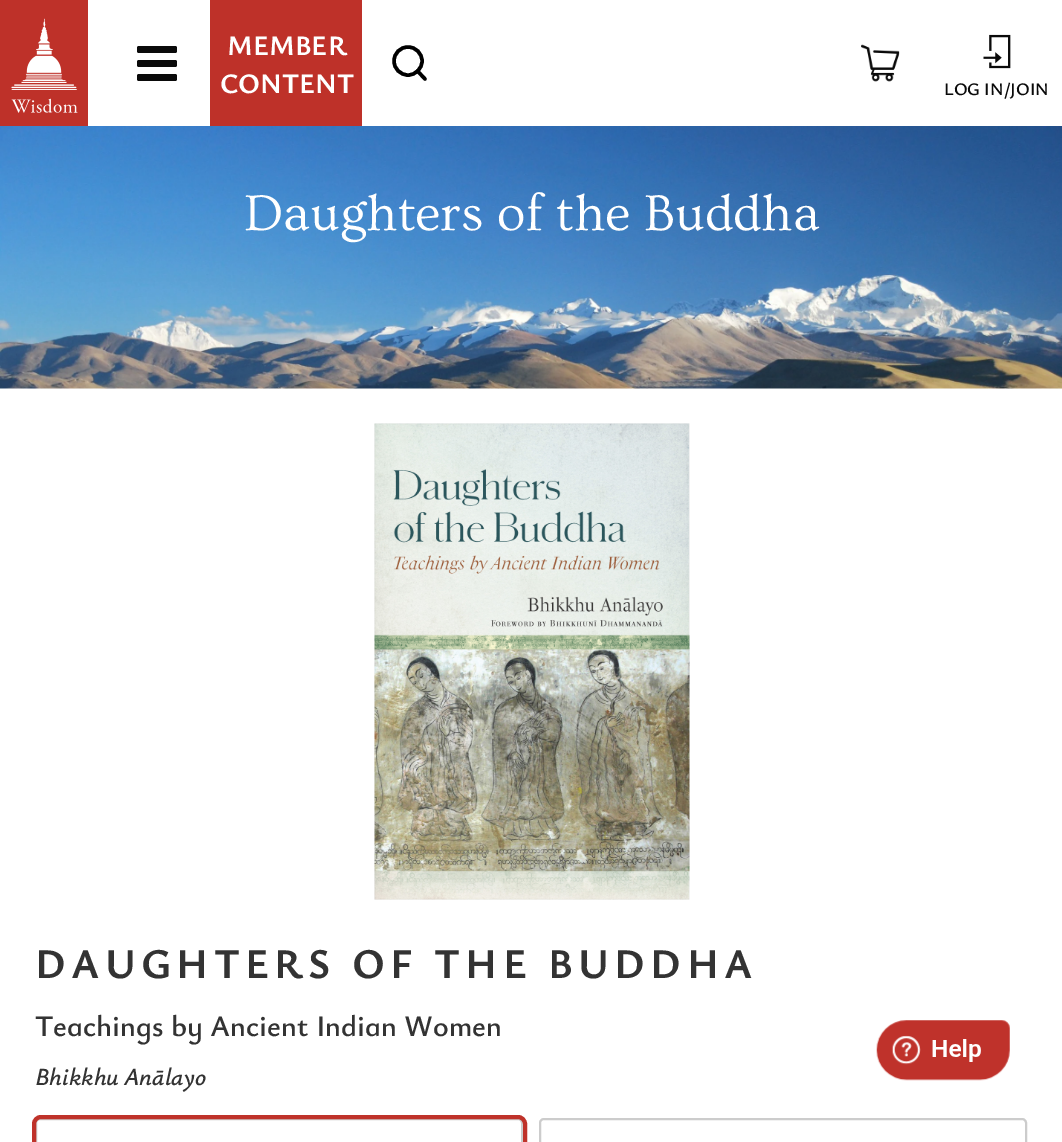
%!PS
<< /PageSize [1062 1142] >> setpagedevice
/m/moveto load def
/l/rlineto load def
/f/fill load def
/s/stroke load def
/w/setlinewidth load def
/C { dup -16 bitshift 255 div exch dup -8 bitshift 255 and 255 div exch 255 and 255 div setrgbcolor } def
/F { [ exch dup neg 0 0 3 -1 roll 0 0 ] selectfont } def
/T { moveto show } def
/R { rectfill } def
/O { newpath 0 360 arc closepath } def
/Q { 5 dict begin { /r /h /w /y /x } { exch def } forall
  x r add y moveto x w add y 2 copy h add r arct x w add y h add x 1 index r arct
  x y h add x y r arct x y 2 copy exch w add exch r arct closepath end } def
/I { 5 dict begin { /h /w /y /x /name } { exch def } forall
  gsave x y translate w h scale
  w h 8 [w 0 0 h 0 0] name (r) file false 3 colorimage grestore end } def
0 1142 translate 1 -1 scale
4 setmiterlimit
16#FFFFFF C
0 0 1062 1142 R
(1.rgb) 0 0 88 126 I
16#0A0A0A C
137 46 40 7 2 Q f
137 60 40 7 2 Q f
137 74 40 7 2 Q f
16#BE3129 C
210 0 152 126 R
/YsabeauInfant-Bold 28 F
16#FFFFFF C
(MEMBER) 227 55 T
(CONTENT) 220 93 T
16#000000 C
3.5 w
408 61 14 O s
1 setlinecap
1 setlinejoin
425 79 m -7.5 -8 l s
(2.rgb) 861 44 39 38 I
(3.rgb) 983 34 28 35 I
/YsabeauInfant-SemiBold 17.5 F
16#0A0A0A C
(LOG IN/JOIN) 944 95 T
(4.rgb) 0 126 1062 263 I
/Ovo-Regular 52.5 F
16#FFFFFF C
(Daughters of the Buddha) 244 230 T
(5.rgb) 374 423 316 477 I
/YsabeauInfant-Bold 42 F
16#333333 C
35 978 m .5 0 32 5.25 0 (DAUGHTERS OF THE BUDDHA) awidthshow
/YsabeauInfant-SemiBold 29.75 F
(Teachings by Ancient Indian Women) 35 1036 T
/YsabeauInfant-SemiBoldItalic 24.5 F
35 1085 m -1 0 32 (Bhikkhu Anālayo) widthshow
16#CCCCCC C
2 w
0 setlinecap
0 setlinejoin
36 1119 486 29 4 Q s
16#BF322A C
4 w
34 1117 491 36 7 Q s
16#CCCCCC C
2 w
540 1119 486 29 4 Q s
(6.rgb) 876 1020 134 61 I
showpage
